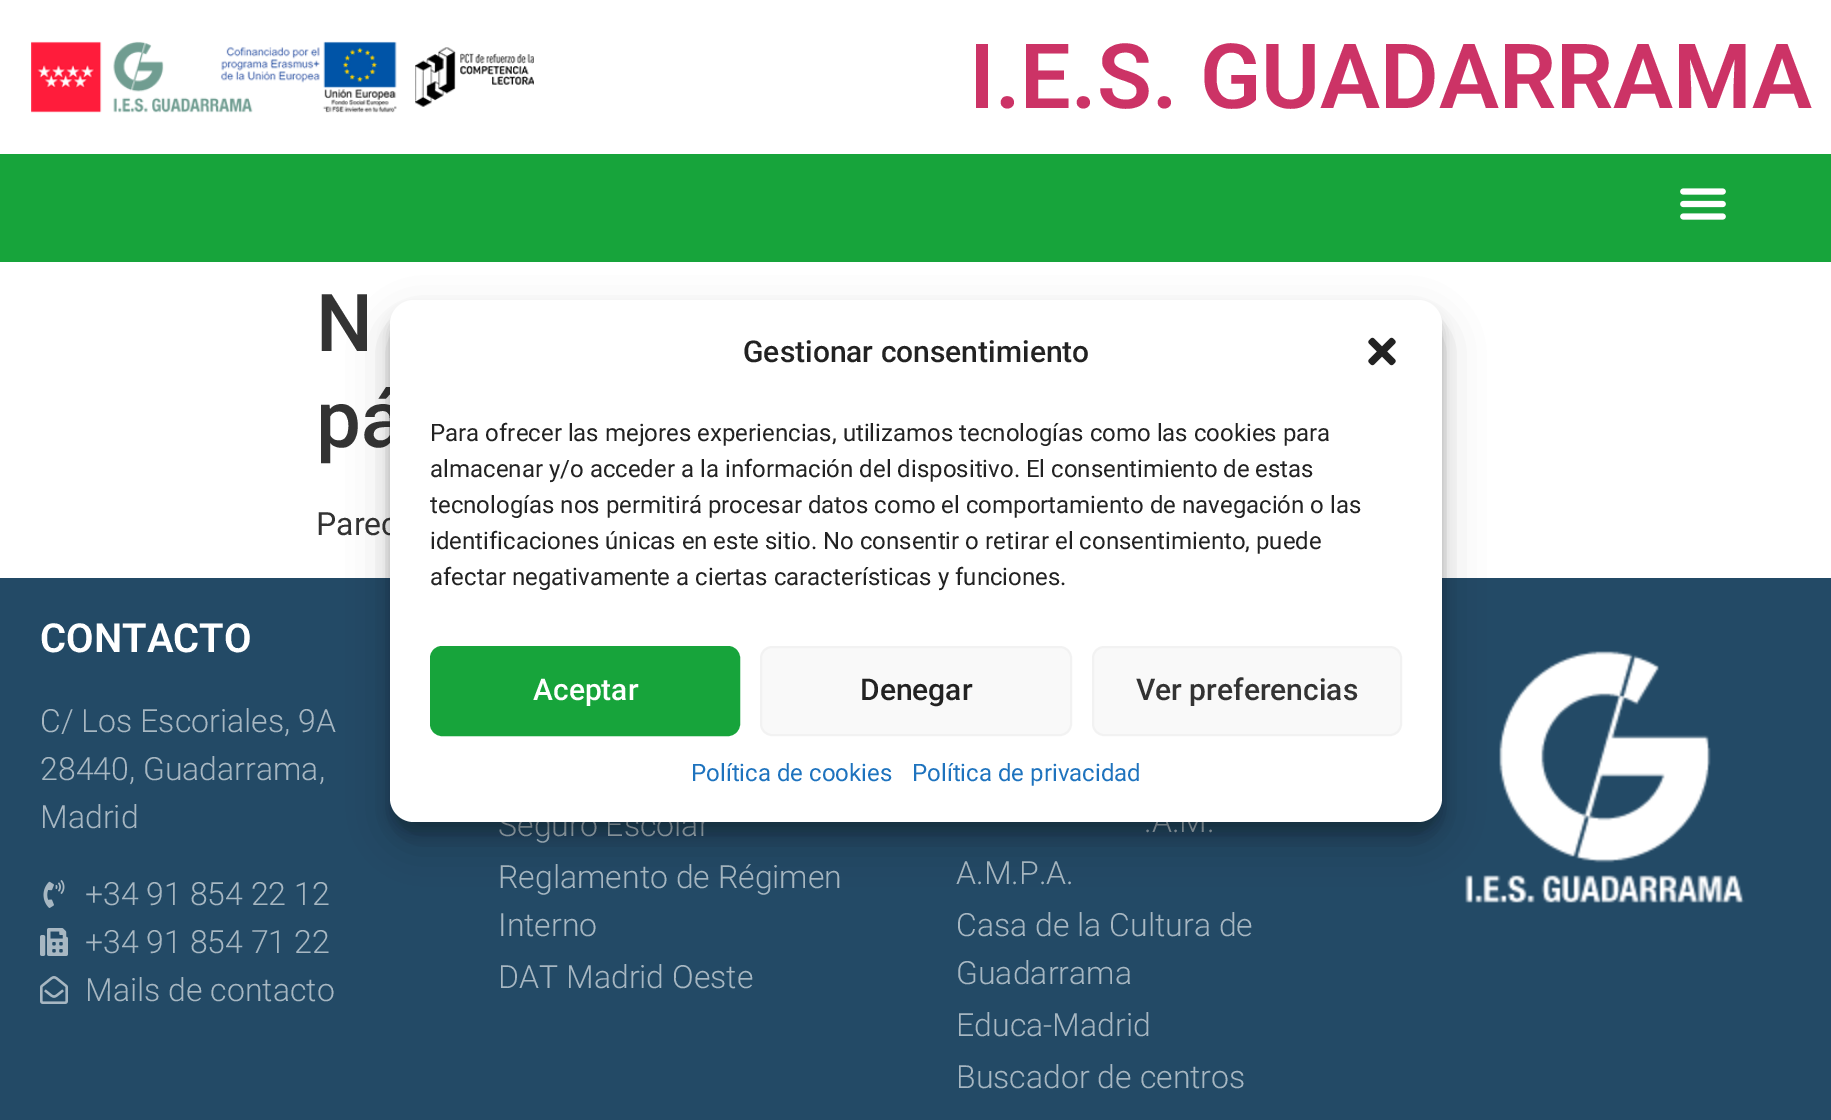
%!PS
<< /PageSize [1831 1120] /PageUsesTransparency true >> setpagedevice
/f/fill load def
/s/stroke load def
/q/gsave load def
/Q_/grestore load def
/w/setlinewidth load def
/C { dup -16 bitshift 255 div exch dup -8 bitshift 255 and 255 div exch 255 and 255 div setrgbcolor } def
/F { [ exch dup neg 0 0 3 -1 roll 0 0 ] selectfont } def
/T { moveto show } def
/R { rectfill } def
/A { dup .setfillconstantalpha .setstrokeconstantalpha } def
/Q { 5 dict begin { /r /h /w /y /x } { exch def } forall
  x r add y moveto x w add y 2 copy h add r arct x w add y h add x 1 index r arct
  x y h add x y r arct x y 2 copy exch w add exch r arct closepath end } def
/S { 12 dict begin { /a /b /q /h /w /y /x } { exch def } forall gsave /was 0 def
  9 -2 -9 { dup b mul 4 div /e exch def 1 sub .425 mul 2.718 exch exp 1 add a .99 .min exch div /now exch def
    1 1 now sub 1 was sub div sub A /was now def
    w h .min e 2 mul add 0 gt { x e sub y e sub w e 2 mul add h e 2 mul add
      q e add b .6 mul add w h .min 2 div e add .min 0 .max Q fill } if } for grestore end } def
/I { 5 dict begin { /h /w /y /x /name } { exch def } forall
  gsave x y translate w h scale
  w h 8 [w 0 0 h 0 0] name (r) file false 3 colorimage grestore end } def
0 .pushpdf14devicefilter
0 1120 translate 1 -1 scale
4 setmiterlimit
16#FFFFFF C
0 0 1831 1120 R
(1.rgb) 31 41 503 72 I
/Roboto-SemiBold 90 F
16#CC3366 C
(I.E.S. GUADARRAMA) 969 108 T
16#17A43B C
0 154 1831 108 R
(2.rgb) 1680 188 46 32 I
/Roboto-Medium 80 F
16#333333 C
(N) 316 351 T
(pá) 316 447 T
/Roboto-Regular 32 F
(Parec) 316 535 T
16#234A66 C
0 578 1831 542 R
/Roboto-SemiBold 40 F
16#FFFFFF C
(CONTACTO) 40 652 T
/Roboto-Light 32 F
16#A7B7C2 C
(C/ Los Escoriales, 9A) 40 732 T
(28440, Guadarrama,) 40 780 T
(Madrid) 40 828 T
(3.rgb) 43 880 22 28 I
(+34 91 854 22 12) 85 905 T
(4.rgb) 40 928 28 28 I
(+34 91 854 71 22) 85 953 T
(5.rgb) 40 976 28 28 I
(Mails de contacto) 85 1001 T
(6.rgb) 1465 651 280 252 I
(Seguro Escolar) 498 836 T
(Reglamento de Régimen) 498 888 T
(Interno) 498 936 T
(DAT Madrid Oeste) 498 988 T
(.A.M.) 1144 832 T
(A.M.P.A.) 956 884 T
(Casa de la Cultura de) 956 936 T
(Guadarrama) 956 984 T
(Educa-Madrid) 956 1036 T
(Buscador de centros) 956 1088 T
16#000000 C
390 312 1052 522 24 6 .23 S
390 320 1052 522 24 20 .19 S
16#FFFFFF C
390 300 1052 522 24 Q f
/Roboto-Medium 30 F
16#222222 C
(Gestionar consentimiento) 743 362 T
(7.rgb) 1368 337 28 29 I
/Roboto-Regular 24 F
(Para ofrecer las mejores experiencias, utilizamos tecnologías como las cookies para) 430 441 T
(almacenar y/o acceder a la información del dispositivo. El consentimiento de estas) 430 477 T
(tecnologías nos permitirá procesar datos como el comportamiento de navegación o las) 430 513 T
(identificaciones únicas en este sitio. No consentir o retirar el consentimiento, puede) 430 549 T
(afectar negativamente a ciertas características y funciones.) 430 585 T
16#17A43B C
431 647 308 88 11 Q q f Q_
2 w
s
/Roboto-Medium 30 F
16#FFFFFF C
(Aceptar) 533 700 T
16#F9F9F9 C
761 647 310 88 11 Q q f Q_
16#F2F2F2 C
s
16#222222 C
(Denegar) 860 700 T
16#F9F9F9 C
1093 647 308 88 11 Q q f Q_
16#F2F2F2 C
s
16#333333 C
(Ver preferencias) 1136 700 T
/Roboto-Regular 24 F
16#1E73BE C
(Política de cookies) 691 781 T
(Política de privacidad) 912 781 T
.poppdf14devicefilter showpage
